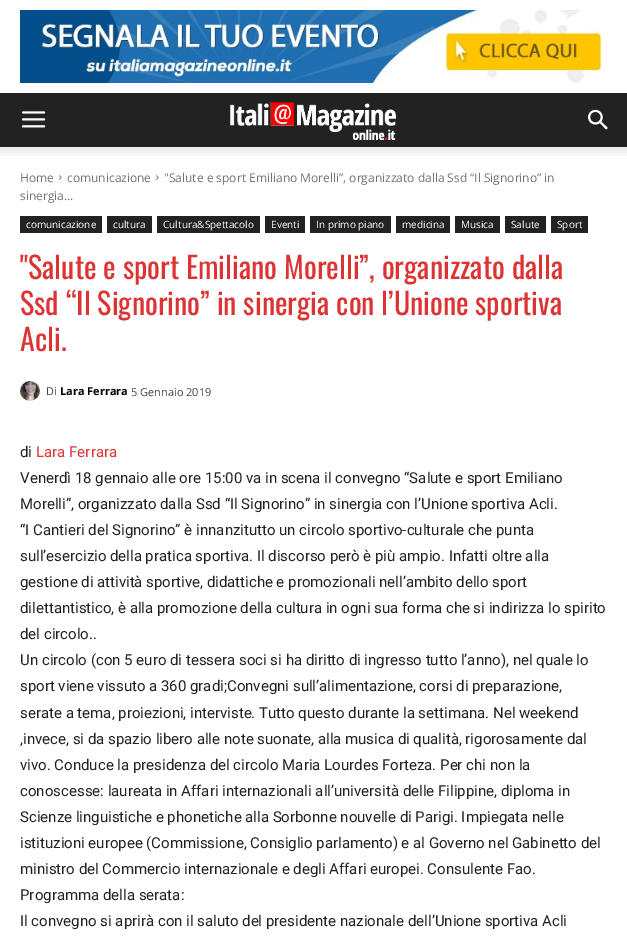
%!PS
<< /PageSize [627 939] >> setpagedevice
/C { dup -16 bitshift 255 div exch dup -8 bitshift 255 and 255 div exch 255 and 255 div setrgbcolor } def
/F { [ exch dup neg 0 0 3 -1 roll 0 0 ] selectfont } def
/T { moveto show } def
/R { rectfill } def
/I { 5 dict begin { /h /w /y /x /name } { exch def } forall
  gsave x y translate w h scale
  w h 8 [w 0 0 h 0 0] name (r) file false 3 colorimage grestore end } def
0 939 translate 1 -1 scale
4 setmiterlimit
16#FFFFFF C
0 0 627 939 R
(1.rgb) 20 10 582 73 I
16#222222 C
0 93 627 54 R
(2.rgb) 22 111 24 17 I
(3.rgb) 230 102 166 38 I
(4.rgb) 588 109 20 21 I
(5.rgb) 0 147 627 9 I
/OpenSans-Regular 12 F
16#747474 C
(Home) 20 182 T
(6.rgb) 59 175 3 5 I
(comunicazione) 67 182 T
(6.rgb) 156 175 3 5 I
("Salute e sport Emiliano Morelli”, organizzato dalla Ssd “Il Signorino” in) 164 182 T
(sinergia...) 20 200 T
16#222222 C
20 216 82 17 R
/OpenSans-Regular 10 F
16#FFFFFF C
(comunicazione) 26 228 T
16#222222 C
107 216 45 17 R
16#FFFFFF C
(cultura) 113 228 T
16#222222 C
157 216 103 17 R
16#FFFFFF C
(Cultura&Spettacolo) 163 228 T
16#222222 C
265 216 40 17 R
16#FFFFFF C
(Eventi) 271 228 T
16#222222 C
310 216 81 17 R
16#FFFFFF C
(In primo piano) 316 228 T
16#222222 C
396 216 54 17 R
16#FFFFFF C
(medicina) 402 228 T
16#222222 C
455 216 45 17 R
16#FFFFFF C
(Musica) 461 228 T
16#222222 C
505 216 41 17 R
16#FFFFFF C
(Salute) 511 228 T
16#222222 C
551 216 37 17 R
16#FFFFFF C
(Sport) 557 228 T
/Oswald-Regular 30 F
16#DD3333 C
("Salute e sport Emiliano Morelli”, organizzato dalla) 20 279 T
(Ssd “Il Signorino” in sinergia con l’Unione sportiva) 20 315 T
(Acli.) 20 351 T
(7.rgb) 20 381 20 20 I
/OpenSans-Regular 11 F
16#444444 C
(Di) 46 395 T
/OpenSans-Bold 11 F
16#000000 C
(Lara Ferrara) 60 395 T
/OpenSans-Regular 11 F
16#444444 C
(5 Gennaio 2019) 131 396 T
/Roboto-Regular 15 F
16#222222 C
(di) 20 457 T
16#DD3333 C
(Lara Ferrara) 36 457 T
16#222222 C
(Venerdì 18 gennaio alle ore 15:00 va in scena il convegno “Salute e sport Emiliano) 20 483 T
(Morelli”, organizzato dalla Ssd “Il Signorino” in sinergia con l’Unione sportiva Acli.) 20 509 T
(“I Cantieri del Signorino” è innanzitutto un circolo sportivo-culturale che punta) 20 535 T
(sull’esercizio della pratica sportiva. Il discorso però è più ampio. Infatti oltre alla) 20 561 T
(gestione di attività sportive, didattiche e promozionali nell’ambito dello sport) 20 587 T
(dilettantistico, è alla promozione della cultura in ogni sua forma che si indirizza lo spirito) 20 613 T
(del circolo..) 20 639 T
(Un circolo \(con 5 euro di tessera soci si ha diritto di ingresso tutto l’anno\), nel quale lo) 20 665 T
(sport viene vissuto a 360 gradi;Convegni sull’alimentazione, corsi di preparazione,) 20 691 T
(serate a tema, proiezioni, interviste. Tutto questo durante la settimana. Nel weekend) 20 718 T
(,invece, si da spazio libero alle note suonate, alla musica di qualità, rigorosamente dal) 20 744 T
(vivo. Conduce la presidenza del circolo Maria Lourdes Forteza. Per chi non la) 20 770 T
(conoscesse: laureata in Affari internazionali all’università delle Filippine, diploma in) 20 796 T
(Scienze linguistiche e phonetiche alla Sorbonne nouvelle di Parigi. Impiegata nelle) 20 822 T
(istituzioni europee \(Commissione, Consiglio parlamento\) e al Governo nel Gabinetto del) 20 848 T
(ministro del Commercio internazionale e degli Affari europei. Consulente Fao.) 20 874 T
(Programma della serata:) 20 900 T
(Il convegno si aprirà con il saluto del presidente nazionale dell’Unione sportiva Acli) 20 926 T
showpage
